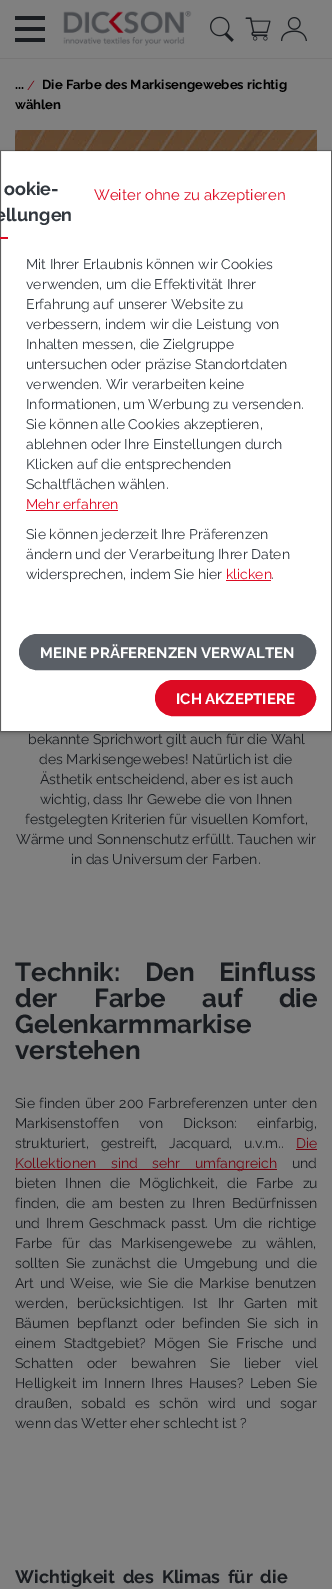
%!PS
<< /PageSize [332 1589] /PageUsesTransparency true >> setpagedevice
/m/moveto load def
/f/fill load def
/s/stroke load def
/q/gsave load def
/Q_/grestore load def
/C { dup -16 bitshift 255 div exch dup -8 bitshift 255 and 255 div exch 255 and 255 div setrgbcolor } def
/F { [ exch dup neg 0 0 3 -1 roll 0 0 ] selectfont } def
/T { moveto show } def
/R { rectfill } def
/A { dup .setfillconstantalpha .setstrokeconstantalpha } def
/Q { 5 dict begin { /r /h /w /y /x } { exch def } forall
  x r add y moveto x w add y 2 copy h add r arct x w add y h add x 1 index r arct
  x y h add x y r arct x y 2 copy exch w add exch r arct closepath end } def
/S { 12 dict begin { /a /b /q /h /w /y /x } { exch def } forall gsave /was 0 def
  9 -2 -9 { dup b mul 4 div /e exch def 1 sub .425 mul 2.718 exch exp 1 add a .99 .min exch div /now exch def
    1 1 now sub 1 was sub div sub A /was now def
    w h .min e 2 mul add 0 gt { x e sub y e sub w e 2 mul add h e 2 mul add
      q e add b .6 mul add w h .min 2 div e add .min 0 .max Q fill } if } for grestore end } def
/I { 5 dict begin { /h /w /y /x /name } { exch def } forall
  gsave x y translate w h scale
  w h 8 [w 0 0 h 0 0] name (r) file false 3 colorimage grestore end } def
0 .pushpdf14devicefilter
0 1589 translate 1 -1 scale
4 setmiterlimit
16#808080 C
0 0 332 1589 R
16#191C20 C
15 16 30 4 R
15 27 30 4 R
15 38 30 4 R
(1.rgb) 63 11 129 35 I
(2.rgb) 210 16 24 26 I
(3.rgb) 245 17 26 24 I
(4.rgb) 281 17 26 24 I
16#777676 C
0 58 332 1 R
/Raleway-Regular 13 F
16#6E0612 C
(/) 27 90 T
/Raleway-Bold 13 F
16#000000 C
(Die Farbe des Markisengewebes richtig) 42 89 T
(wählen) 15 109 T
(...) 15 89 T
(5.rgb) 15 130 302 21 I
/Raleway-Regular 14 F
16#191C20 C
(bekannte Sprichwort gilt auch für die Wahl) 28 744 T
(des Markisengewebes! Natürlich ist die) 39 764 T
(Ästhetik entscheidend, aber es ist auch) 40 784 T
(wichtig, dass Ihr Gewebe die von Ihnen) 40 804 T
(festgelegten Kriterien für visuellen Komfort,) 25 824 T
(Wärme und Sonnenschutz erfüllt. Tauchen wir) 16 844 T
(in das Universum der Farben.) 71 864 T
/Raleway-Bold 26 F
15 981 m 18 0 32 (Technik: Den Einfluss) widthshow
15 1007 m 30 0 32 (der Farbe auf die) widthshow
(Gelenkarmmarkise) 15 1033 T
(verstehen) 15 1059 T
/Raleway-Regular 14 F
15 1108 m 1 0 32 (Sie finden über 200 Farbreferenzen unter den) widthshow
15 1128 m 16.5 0 32 (Markisenstoffen von Dickson: einfarbig,) widthshow
15 1148 m 8 0 32 (strukturiert, gestreift, Jacquard, u.v.m..) widthshow
16#6E0612 C
(Die) 296 1148 T
296 1149 21 1 R
15 1169 262 1 R
15 1168 m 11 0 32 (Kollektionen sind sehr umfangreich) widthshow
16#191C20 C
(und) 292 1168 T
15 1188 m 5.5 0 32 (bieten Ihnen die Möglichkeit, die Farbe zu) widthshow
15 1208 m 3 0 32 (finden, die am besten zu Ihren Bedürfnissen) widthshow
15 1228 m 2 0 32 (und Ihrem Geschmack passt. Um die richtige) widthshow
15 1248 m 5.5 0 32 (Farbe für das Markisengewebe zu wählen,) widthshow
15 1268 m 3.25 0 32 (sollten Sie zunächst die Umgebung und die) widthshow
15 1288 m 2 0 32 (Art und Weise, wie Sie die Markise benutzen) widthshow
15 1308 m 6 0 32 (werden, berücksichtigen. Ist Ihr Garten mit) widthshow
15 1328 m 3.5 0 32 (Bäumen bepflanzt oder befinden Sie sich in) widthshow
15 1348 m 4.75 0 32 (einem Stadtgebiet? Mögen Sie Frische und) widthshow
15 1368 m 10.5 0 32 (Schatten oder bewahren Sie lieber viel) widthshow
15 1388 m 2.5 0 32 (Helligkeit im Innern Ihres Hauses? Leben Sie) widthshow
15 1408 m 6 0 32 (draußen, sobald es schön wird und sogar) widthshow
(wenn das Wetter eher schlecht ist ?) 15 1428 T
/Raleway-Bold 18 F
15 1583 m 3.5 0 32 (Wichtigkeit des Klimas für die) widthshow
16#000000 C
0 152 332 582 0 2 .15 S
16#FFFFFF C
1 151 330 580 R
0.2 A
16#000000 C
.5 150.5 331 581 rectstroke
1 A
16#32383F C
(ookie-) 4 195 T
(ellungen) -5 221 T
16#DC0B23 C
0 237 8 2 R
/Raleway-Regular 15 F
(Weiter ohne zu akzeptieren) 94 200 T
/Raleway-Regular 14 F
16#32383F C
(Mit Ihrer Erlaubnis können wir Cookies) 26 269 T
(verwenden, um die Effektivität Ihrer) 26 289 T
(Erfahrung auf unserer Website zu) 26 309 T
(verbessern, indem wir die Leistung von) 26 329 T
(Inhalten messen, die Zielgruppe) 26 349 T
(untersuchen oder präzise Standortdaten) 26 369 T
(verwenden. Wir verarbeiten keine) 26 389 T
(Informationen, um Werbung zu versenden.) 26 409 T
(Sie können alle Cookies akzeptieren,) 26 429 T
(ablehnen oder Ihre Einstellungen durch) 26 449 T
(Klicken auf die entsprechenden) 26 469 T
(Schaltflächen wählen.) 26 489 T
16#DC0B23 C
(Mehr erfahren) 26 509 T
26 510 92 1 R
16#32383F C
(Sie können jederzeit Ihre Präferenzen) 26 539 T
(ändern und der Verarbeitung Ihrer Daten) 26 559 T
(widersprechen, indem Sie hier) 26 579 T
16#DC0B23 C
(klicken) 226 579 T
226 580 45 1 R
16#32383F C
(.) 271 579 T
16#5A5F66 C
19.5 634.5 296 35 17.5 Q q f Q_
s
/Raleway-Bold 15 F
16#FFFFFF C
(MEINE PRÄFERENZEN VERWALTEN) 40 658 T
16#DC0B23 C
155.5 680.5 160 35 17.5 Q q f Q_
s
16#FFFFFF C
(ICH AKZEPTIERE) 176 704 T
.poppdf14devicefilter showpage
